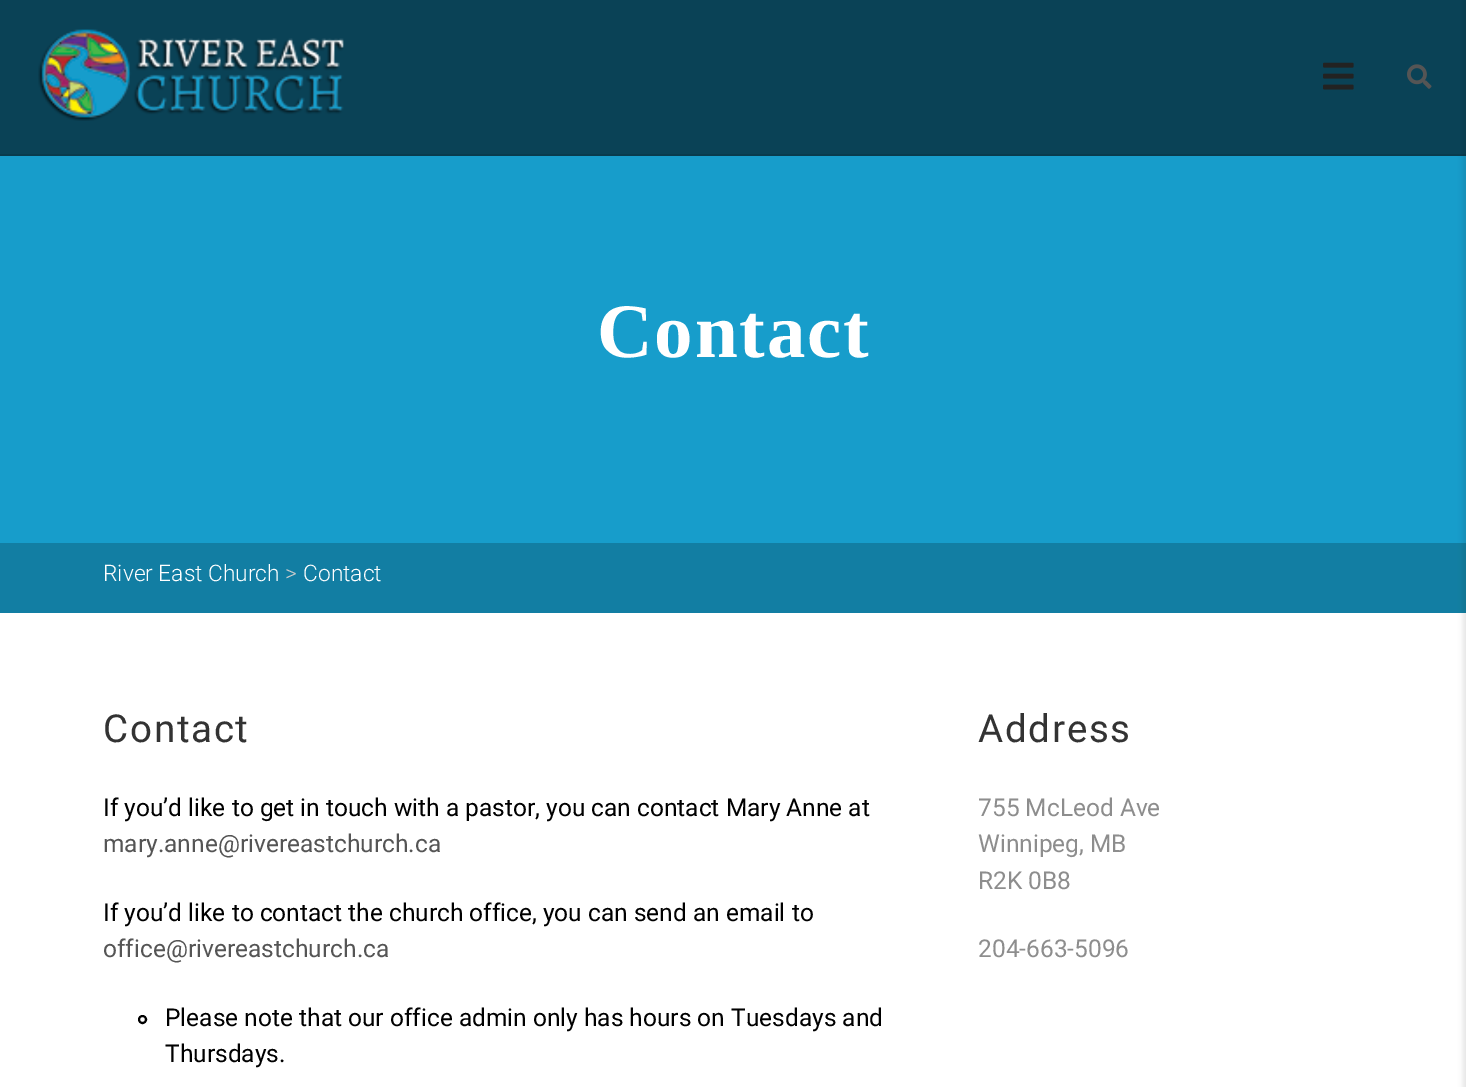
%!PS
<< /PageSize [1466 1087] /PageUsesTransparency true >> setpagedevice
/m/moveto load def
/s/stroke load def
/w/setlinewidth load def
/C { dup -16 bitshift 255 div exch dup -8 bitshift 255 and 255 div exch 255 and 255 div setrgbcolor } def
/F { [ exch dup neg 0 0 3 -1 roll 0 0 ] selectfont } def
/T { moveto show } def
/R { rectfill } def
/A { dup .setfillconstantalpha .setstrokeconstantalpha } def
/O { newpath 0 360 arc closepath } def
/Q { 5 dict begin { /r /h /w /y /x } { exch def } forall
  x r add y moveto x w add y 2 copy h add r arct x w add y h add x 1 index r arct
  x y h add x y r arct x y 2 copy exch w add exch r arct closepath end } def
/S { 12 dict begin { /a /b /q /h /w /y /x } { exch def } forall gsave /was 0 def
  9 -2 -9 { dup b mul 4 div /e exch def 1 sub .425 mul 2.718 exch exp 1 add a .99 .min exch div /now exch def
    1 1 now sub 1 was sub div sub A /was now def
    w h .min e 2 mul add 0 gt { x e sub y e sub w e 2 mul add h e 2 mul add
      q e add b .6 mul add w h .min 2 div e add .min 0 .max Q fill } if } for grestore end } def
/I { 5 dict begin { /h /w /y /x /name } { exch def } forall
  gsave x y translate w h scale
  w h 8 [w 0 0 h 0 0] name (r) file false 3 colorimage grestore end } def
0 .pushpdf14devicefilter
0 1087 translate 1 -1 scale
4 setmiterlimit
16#FFFFFF C
0 0 1466 1087 R
16#0A4256 C
0 0 1466 154 R
16#093B4D C
0 154 1466 2 R
(1.rgb) 38 29 306 92 I
(2.rgb) 1323 62 31 28 I
(3.rgb) 1407 64 25 25 I
16#179DCB C
0 156 1466 387 R
/LiberationSerif-Bold 77 F
16#FFFFFF C
597 357 m 1.75 0 (Contact) ashow
16#127EA3 C
0 543 1466 70 R
/Roboto-Light 22.75 F
16#FFFFFF C
(River East Church) 103 581 T
16#CCCCCC C
(>) 285 581 T
16#FFFFFF C
(Contact) 303 581 T
/Roboto-Regular 38.5 F
16#333333 C
103 742 m 1.75 0 (Contact) ashow
/Roboto-Regular 24.5 F
16#000000 C
(If you’d like to get in touch with a pastor, you can contact Mary Anne at) 103 816 T
16#555555 C
(mary.anne@rivereastchurch.ca) 103 852 T
16#000000 C
(If you’d like to contact the church office, you can send an email to) 103 921 T
16#555555 C
(office@rivereastchurch.ca) 103 957 T
16#000000 C
2 w
142.5 1019.5 3.5 O s
(Please note that our office admin only has hours on Tuesdays and) 165 1026 T
(Thursdays.) 165 1062 T
/Roboto-Regular 38.5 F
16#333333 C
978 742 m 1.75 0 (Address) ashow
/Roboto-Regular 24.5 F
16#8D8D8D C
(755 McLeod Ave) 978 816 T
(Winnipeg, MB) 978 852 T
(R2K 0B8) 978 889 T
(204-663-5096) 978 957 T
16#000000 C
1463 0 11 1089 0 2.5 .1 S
.poppdf14devicefilter showpage
